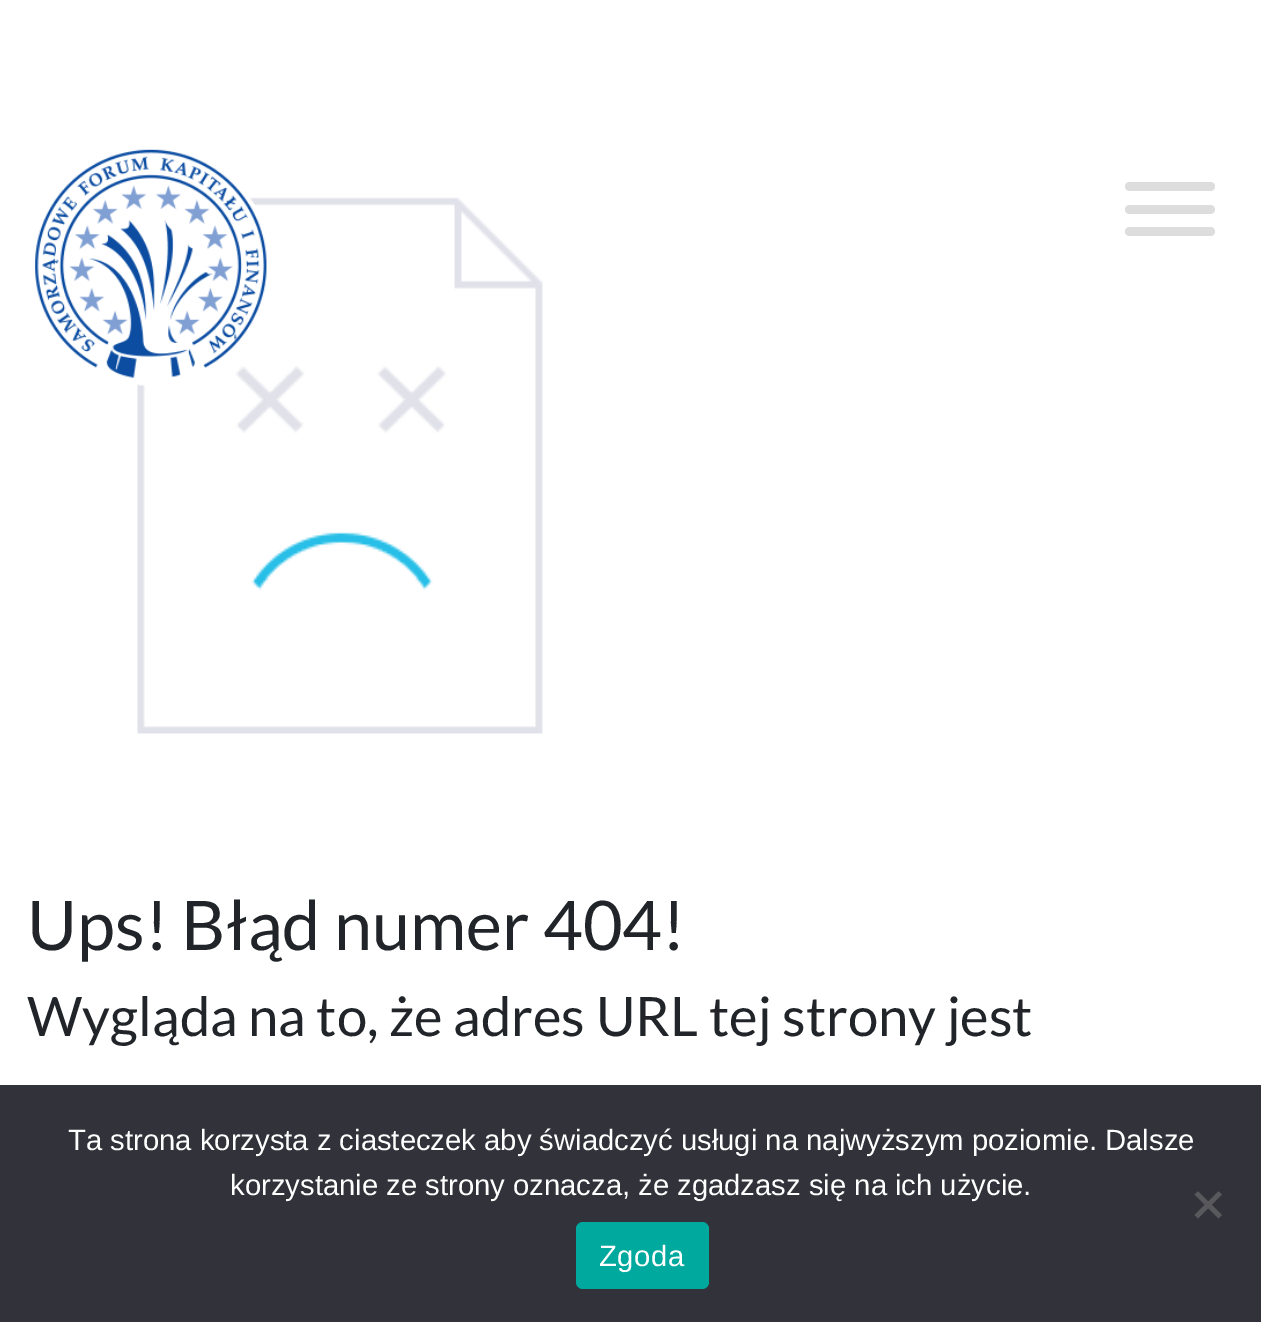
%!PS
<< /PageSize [1261 1322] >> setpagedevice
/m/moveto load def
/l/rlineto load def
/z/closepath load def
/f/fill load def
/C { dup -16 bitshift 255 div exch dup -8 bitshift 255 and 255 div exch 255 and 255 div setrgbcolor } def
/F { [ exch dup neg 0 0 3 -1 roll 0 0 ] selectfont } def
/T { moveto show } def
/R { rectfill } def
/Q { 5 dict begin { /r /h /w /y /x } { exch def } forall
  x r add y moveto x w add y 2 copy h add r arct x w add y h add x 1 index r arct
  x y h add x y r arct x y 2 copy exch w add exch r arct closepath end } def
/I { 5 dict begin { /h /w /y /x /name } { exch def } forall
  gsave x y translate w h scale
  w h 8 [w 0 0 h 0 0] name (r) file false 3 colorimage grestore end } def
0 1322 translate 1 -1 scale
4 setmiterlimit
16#FFFFFF C
0 0 1261 1322 R
(2.rgb) 137 197 406 537 I
(1.rgb) 35 149 232 237 I
16#DDDDDD C
1125 182 90 9 4.5 Q f
1125 205 90 9 4.5 Q f
1125 227 90 9 4.5 Q f
/Lato-Regular 68.5 F
16#212529 C
(Ups! Błąd numer 404!) 27 950 T
/Lato-Regular 54.4 F
(Wygląda na to, że adres URL tej strony jest) 27 1036 T
16#32323A C
0 1085 1261 237 R
/LiberationSans-Regular 29.25 F
16#FFFFFF C
(Ta strona korzysta z ciasteczek aby świadczyć usługi na najwyższym poziomie. Dalsze) 68 1150 T
(korzystanie ze strony oznacza, że zgadzasz się na ich użycie.) 230 1195 T
16#59595D C
1218.5 1191.5 m 3.5 3 l -24 24 l -3.5 -3.5 l z f
1194.5 1194.5 m 3.5 -3 l 24 23.5 l -3.5 3.5 l z f
16#00A99D C
576 1222 133 67 7 Q f
16#FFFFFF C
599 1266 m .5 0 (Zgoda) ashow
showpage
